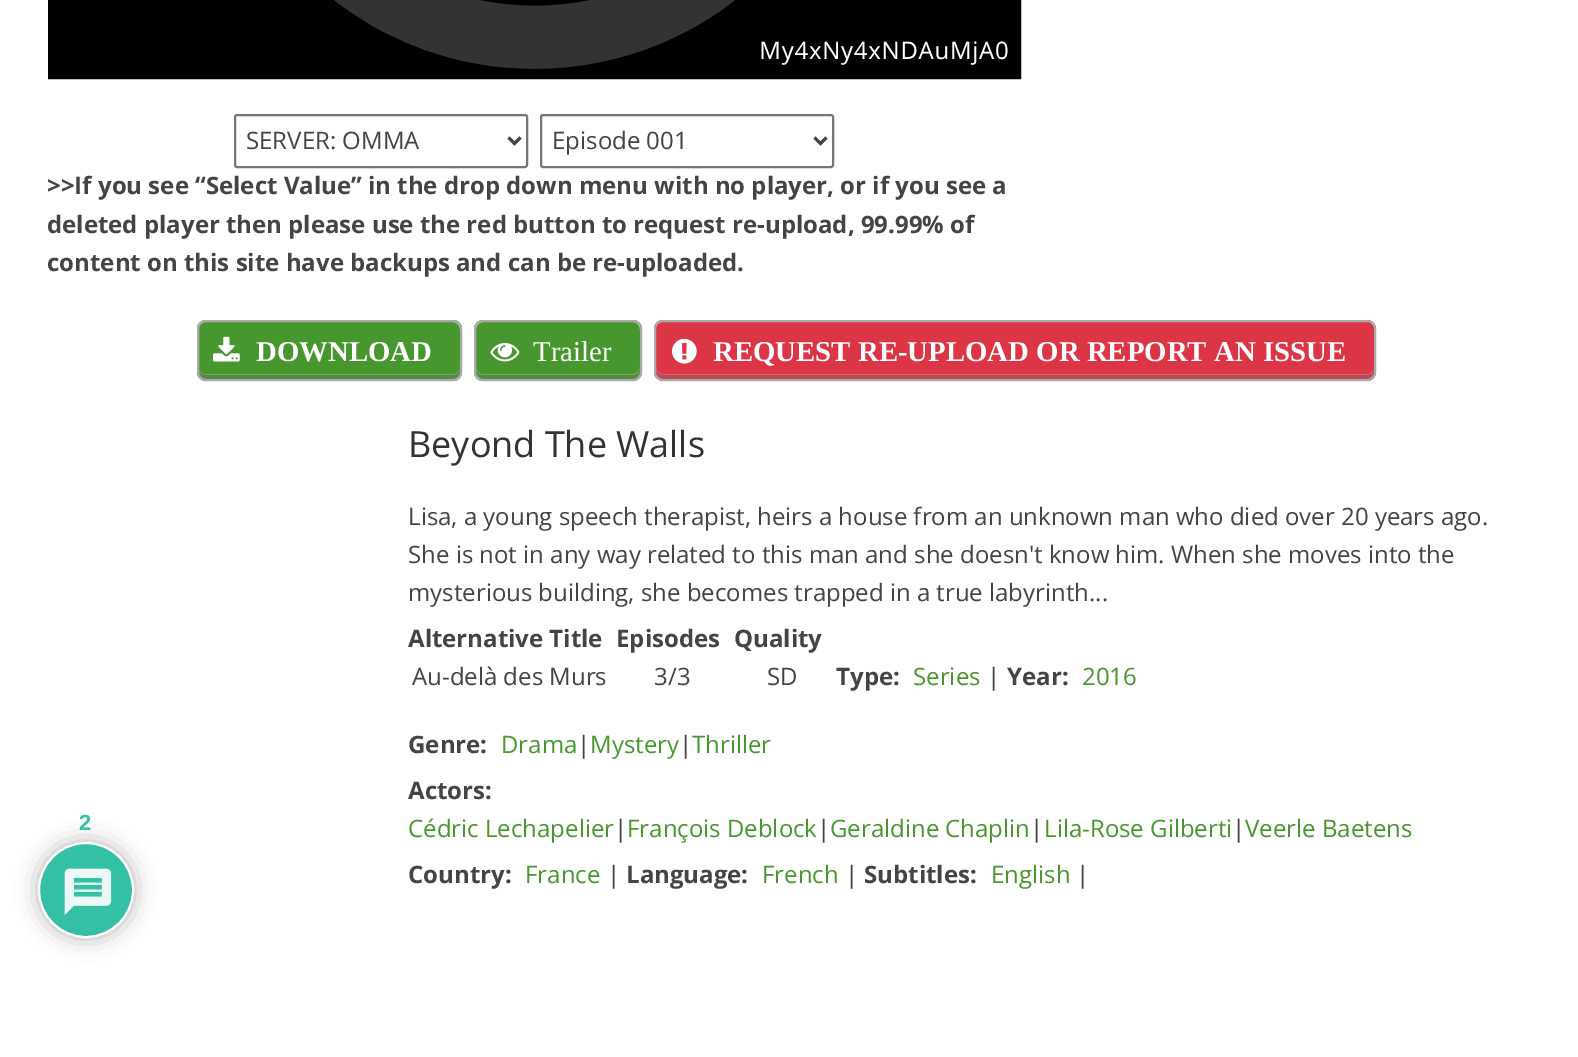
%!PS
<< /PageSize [1578 1057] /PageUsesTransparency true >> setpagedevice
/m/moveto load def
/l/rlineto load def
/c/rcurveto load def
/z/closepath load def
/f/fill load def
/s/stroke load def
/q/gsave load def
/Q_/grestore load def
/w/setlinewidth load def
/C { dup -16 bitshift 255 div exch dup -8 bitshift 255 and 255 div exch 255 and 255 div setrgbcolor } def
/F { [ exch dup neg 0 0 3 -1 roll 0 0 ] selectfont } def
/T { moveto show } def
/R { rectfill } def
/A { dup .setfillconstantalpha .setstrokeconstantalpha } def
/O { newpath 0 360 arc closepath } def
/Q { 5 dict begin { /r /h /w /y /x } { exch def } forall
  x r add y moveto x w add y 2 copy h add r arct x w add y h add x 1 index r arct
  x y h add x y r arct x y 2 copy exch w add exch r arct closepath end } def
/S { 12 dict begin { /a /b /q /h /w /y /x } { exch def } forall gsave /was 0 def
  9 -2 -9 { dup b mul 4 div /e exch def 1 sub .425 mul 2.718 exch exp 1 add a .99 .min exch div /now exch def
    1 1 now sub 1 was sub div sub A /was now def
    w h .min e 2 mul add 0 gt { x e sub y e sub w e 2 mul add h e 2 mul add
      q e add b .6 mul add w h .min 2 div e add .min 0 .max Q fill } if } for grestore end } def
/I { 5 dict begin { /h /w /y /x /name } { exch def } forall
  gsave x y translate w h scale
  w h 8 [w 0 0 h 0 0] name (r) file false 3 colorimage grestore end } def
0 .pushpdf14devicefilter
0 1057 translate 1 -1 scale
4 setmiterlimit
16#FFFFFF C
0 0 1578 1057 R
(1.rgb) 48 0 974 80 I
16#767676 C
2 w
235 115 292 52 2 Q s
16#444444 C
3 w
508.5 137.5 m 6 6 l 6 -6 l s
/OpenSans-Regular 24 F
(SERVER: OMMA) 246 149 T
16#767676 C
2 w
541 115 292 52 2 Q s
16#444444 C
3 w
814.5 137.5 m 6 6 l 6 -6 l s
(Episode 001) 552 149 T
/OpenSans-Bold 24 F
(>>If you see “Select Value” in the drop down menu with no player, or if you see a) 47 194 T
(deleted player then please use the red button to request re-upload, 99.99% of) 47 233 T
(content on this site have backups and can be re-uploaded.) 47 271 T
16#47962E C
197 320 265 61 9 Q f
16#6CAB58 C
198 366 m 0 6 l 0 4 4 8 8 8 c 247 0 l 4 0 8 -4 8 -8 c 0 -43 l 0 -1 0 -3 -1 -4 c 0 41 l 0 4 -3 8 -7 8 c -248 0 l -4 0 -7 -4 -7 -8 c z f
0.2 A
16#000000 C
198 368 m 0 4 l 0 4 4 8 8 8 c 247 0 l 4 0 8 -4 8 -8 c 0 -43 l 0 -1 0 -3 -1 -4 c 0 43 l 0 4 -3 7 -7 7 c -248 0 l -4 0 -7 -3 -7 -7 c z f
0.5 A
16#FFFFFF C
205 322 m 248 0 l 4 0 7 4 7 8 c 0 44 l 0 3 l 0 -2 1 -3 1 -5 c 0 -43 l 0 -4 -4 -8 -8 -8 c -247 0 l -4 0 -8 4 -8 8 c 0 1 l 0 -4 3 -8 7 -8 c z f
1 A
16#AAAAAA C
2 w
198 321 263 59 8 Q s
(2.rgb) 213 336 27 26 I
/LiberationSerif-Bold 28.8 F
16#FFFFFF C
(DOWNLOAD) 256 361 T
16#47962E C
474 320 168 61 9 Q f
16#6CAB58 C
476 366 m 0 6 l 0 4 4 8 8 8 c 149 0 l 4 0 8 -4 8 -8 c 0 -43 l 0 -1 0 -3 -1 -4 c 0 41 l 0 4 -3 8 -7 8 c -150 0 l -4 0 -7 -4 -7 -8 c z f
0.2 A
16#000000 C
476 368 m 0 4 l 0 4 4 8 8 8 c 149 0 l 4 0 8 -4 8 -8 c 0 -43 l 0 -1 0 -3 -1 -4 c 0 43 l 0 4 -3 7 -7 7 c -150 0 l -4 0 -7 -3 -7 -7 c z f
0.5 A
16#FFFFFF C
483 322 m 150 0 l 4 0 7 4 7 8 c 0 44 l 0 3 l 0 -2 1 -3 1 -5 c 0 -43 l 0 -4 -4 -8 -8 -8 c -149 0 l -4 0 -8 4 -8 8 c 0 1 l 0 -4 3 -8 7 -8 c z f
1 A
16#AAAAAA C
475 321 166 59 8 Q s
(3.rgb) 490 343 30 19 I
/LiberationSerif-Regular 28.8 F
16#FFFFFF C
(Trailer) 533 361 T
16#DC3545 C
654 320 722 61 9 Q f
16#E35D6A C
656 366 m 0 6 0 14 8 14 c 702 0 l 8 0 8 -8 8 -14 c 0 4 -3 8 -7 8 c -704 0 l -4 0 -7 -4 -7 -8 c z f
0.2 A
16#000000 C
656 368 m 0 4 l 0 4 4 8 8 8 c 702 0 l 4 0 8 -4 8 -8 c 0 -4 l 0 4 -3 7 -7 7 c -704 0 l -4 0 -7 -3 -7 -7 c z f
1 A
16#AAAAAA C
655 321 720 59 8 Q s
(4.rgb) 672 338 25 26 I
/LiberationSerif-Bold 28.8 F
16#FFFFFF C
(REQUEST RE-UPLOAD OR REPORT AN ISSUE) 713 361 T
/OpenSans-Regular 36 F
16#333333 C
(Beyond The Walls) 408 457 T
/OpenSans-Regular 24 F
16#444444 C
(Lisa, a young speech therapist, heirs a house from an unknown man who died over 20 years ago.) 408 525 T
(She is not in any way related to this man and she doesn't know him. When she moves into the) 408 563 T
(mysterious building, she becomes trapped in a true labyrinth...) 408 601 T
/OpenSans-Bold 24 F
(Alternative Title) 408 647 T
/OpenSans-Regular 24 F
(Au-delà des Murs) 412 685 T
/OpenSans-Bold 24 F
(Episodes) 616 647 T
/OpenSans-Regular 24 F
(3/3) 654 685 T
/OpenSans-Bold 24 F
(Quality) 734 647 T
/OpenSans-Regular 24 F
(SD) 767 685 T
/OpenSans-Bold 24 F
(Type:) 836 685 T
/OpenSans-Regular 24 F
16#47962E C
(Series) 913 685 T
16#444444 C
(|) 987 685 T
/OpenSans-Bold 24 F
(Year:) 1007 685 T
/OpenSans-Regular 24 F
16#47962E C
(2016) 1082 685 T
/OpenSans-Bold 24 F
16#444444 C
(Genre:) 408 753 T
/OpenSans-Regular 24 F
16#47962E C
(Drama) 501 753 T
16#444444 C
(|) 577 753 T
16#47962E C
(Mystery) 590 753 T
16#444444 C
(|) 679 753 T
16#47962E C
(Thriller) 692 753 T
/OpenSans-Bold 24 F
16#444444 C
(Actors:) 408 799 T
/OpenSans-Regular 24 F
16#47962E C
(Cédric Lechapelier) 408 837 T
16#444444 C
(|) 614 837 T
16#47962E C
(François Deblock) 627 837 T
16#444444 C
(|) 817 837 T
16#47962E C
(Geraldine Chaplin) 830 837 T
16#444444 C
(|) 1030 837 T
16#47962E C
(Lila-Rose Gilberti) 1044 837 T
16#444444 C
(|) 1232 837 T
16#47962E C
(Veerle Baetens) 1245 837 T
/OpenSans-Bold 24 F
16#444444 C
(Country:) 408 883 T
/OpenSans-Regular 24 F
16#47962E C
(France) 525 883 T
16#444444 C
(|) 607 883 T
/OpenSans-Bold 24 F
(Language:) 626 883 T
/OpenSans-Regular 24 F
16#47962E C
(French) 762 883 T
16#444444 C
(|) 845 883 T
/OpenSans-Bold 24 F
(Subtitles:) 864 883 T
/OpenSans-Regular 24 F
16#47962E C
(English) 991 883 T
16#444444 C
(|) 1076 883 T
16#B3B3B3 C
38 842 96 96 48 11 1 S
16#34C0A4 C
86 890 47 O q f Q_
16#FFFFFF C
s
(5.rgb) 64 868 48 47 I
/LiberationSans-Bold 22 F
16#34C0A4 C
(2) 79 830 T
.poppdf14devicefilter showpage
